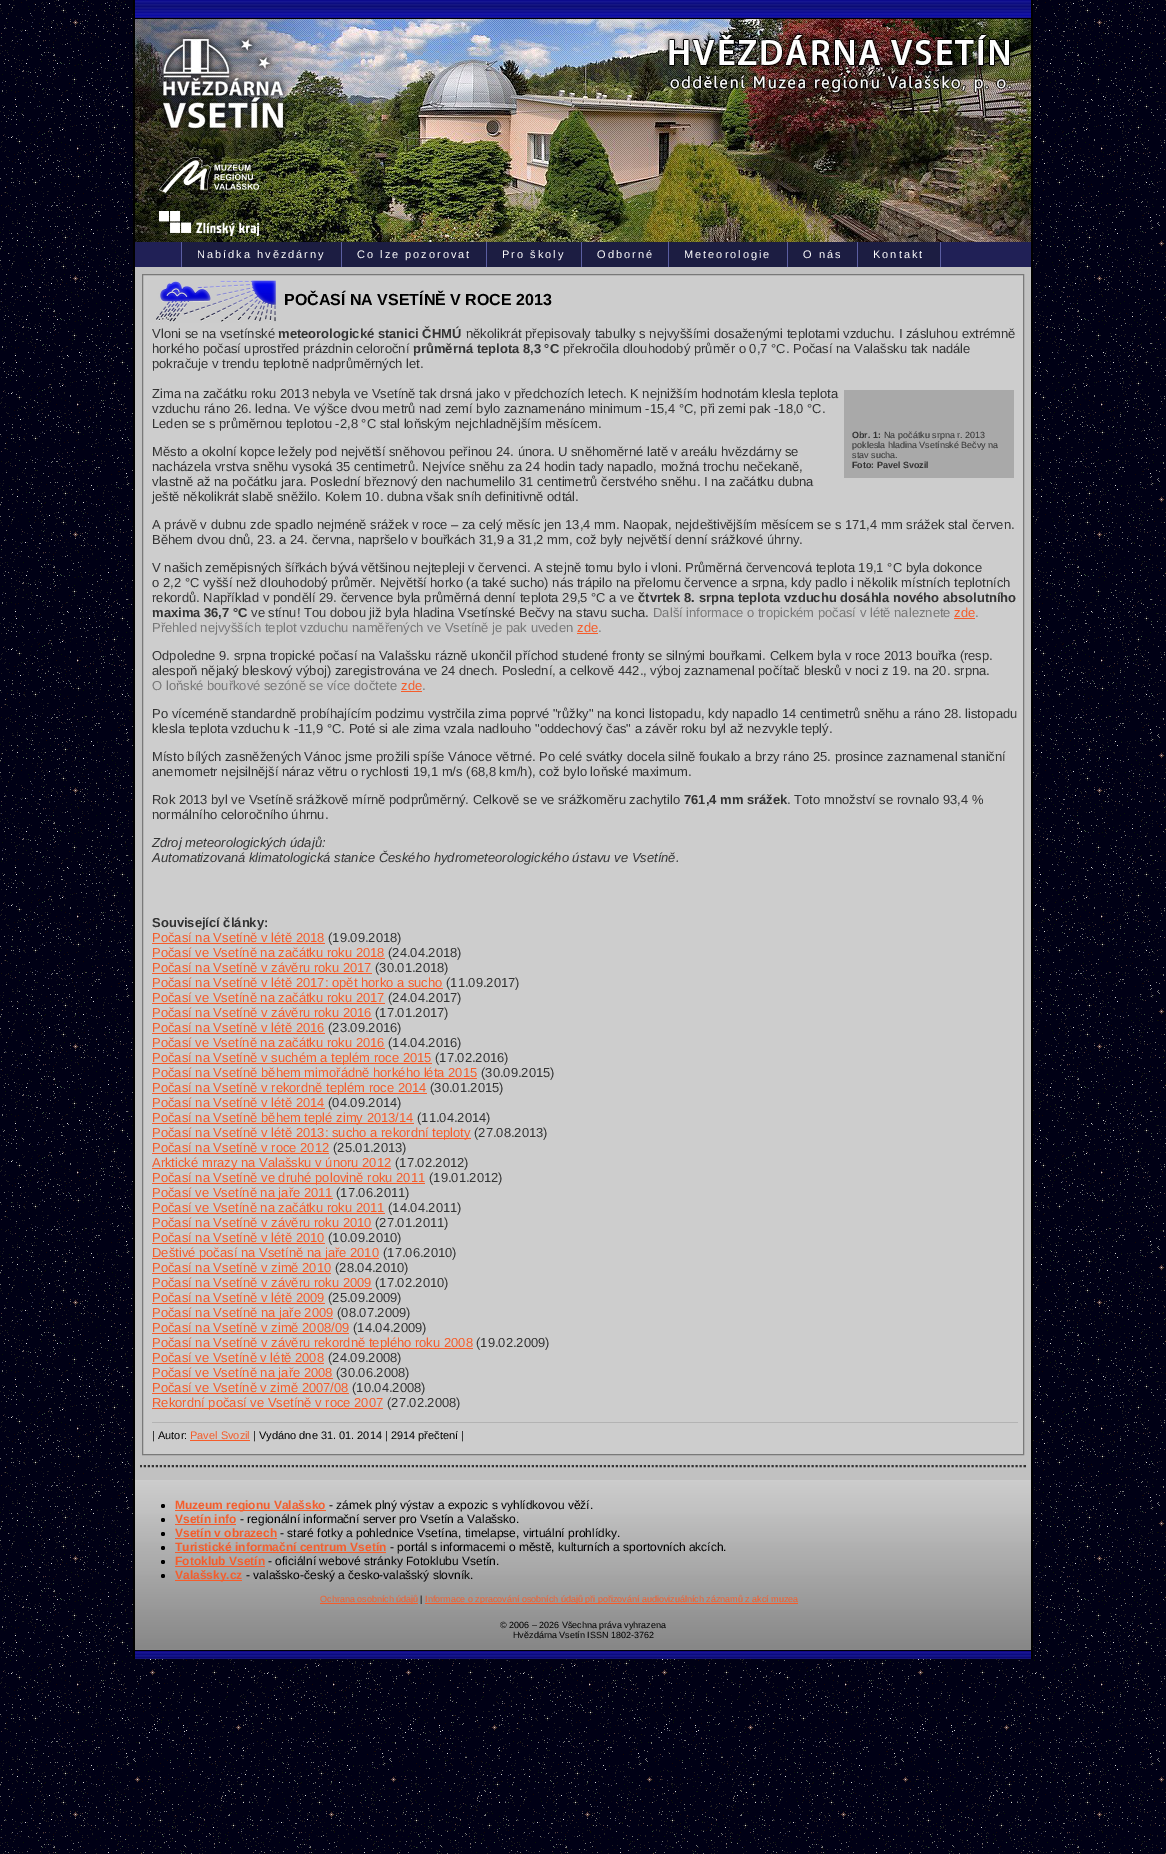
%!PS
<< /PageSize [1166 1854] >> setpagedevice
/m/moveto load def
/l/rlineto load def
/z/closepath load def
/f/fill load def
/s/stroke load def
/q/gsave load def
/Q_/grestore load def
/w/setlinewidth load def
/C { dup -16 bitshift 255 div exch dup -8 bitshift 255 and 255 div exch 255 and 255 div setrgbcolor } def
/F { [ exch dup neg 0 0 3 -1 roll 0 0 ] selectfont } def
/T { moveto show } def
/R { rectfill } def
/O { newpath 0 360 arc closepath } def
/I { 5 dict begin { /h /w /y /x /name } { exch def } forall
  gsave x y translate w h scale
  w h 8 [w 0 0 h 0 0] name (r) file false 3 colorimage grestore end } def
0 1854 translate 1 -1 scale
4 setmiterlimit
16#000015 C
0 0 1166 1854 R
(1.rgb) 0 0 1166 1854 I
16#202056 C
135 242 896 25 R
16#000000 C
1031 0 2 1659 R
133 0 2 1659 R
(2.rgb) 135 0 896 18 I
135 18 896 1 R
(3.rgb) 135 19 896 223 I
(4.rgb) 159 157 100 36 I
(5.rgb) 159 211 100 25 I
16#5B5EA1 C
341 242 1 25 R
181 242 1 25 R
16#1C1D42 C
182 242 159 25 R
/LiberationSans-Regular 11 F
16#FFFFFF C
197 258 m 2 0 (Nabídka hvězdárny) ashow
16#5B5EA1 C
486 242 1 25 R
16#1C1D42 C
342 242 144 25 R
16#FFFFFF C
357 258 m 2 0 (Co lze pozorovat) ashow
16#5B5EA1 C
581 242 1 25 R
16#1C1D42 C
487 242 94 25 R
16#FFFFFF C
502 258 m 2 0 (Pro školy) ashow
16#5B5EA1 C
668 242 1 25 R
16#1C1D42 C
582 242 86 25 R
16#FFFFFF C
597 258 m 2 0 (Odborné) ashow
16#5B5EA1 C
787 242 1 25 R
16#1C1D42 C
669 242 118 25 R
16#FFFFFF C
684 258 m 2 0 (Meteorologie) ashow
16#5B5EA1 C
857 242 1 25 R
16#1C1D42 C
788 242 69 25 R
16#FFFFFF C
803 258 m 2 0 (O nás) ashow
16#5B5EA1 C
940 242 1 25 R
16#1C1D42 C
858 242 82 25 R
16#FFFFFF C
873 258 m 2 0 (Kontakt) ashow
(6.rgb) 135 1480 896 170 I
16#C1C1C1 C
135 267 896 1213 R
16#333333 C
2 w
[2 2] 0 setdash
140 1466 m 886 0 l s
16#CDCDCD C
142.5 274.5 m 881 0 l 0 1180 l -881 0 l z q f Q_
16#797979 C
1 w
[] 0 setdash
s
(7.rgb) 148 280 128 43 I
/LiberationSans-Bold 16 F
16#000000 C
(POČASÍ NA VSETÍNĚ V ROCE 2013) 284 305 T
/LiberationSans-Regular 13 F
16#333333 C
(Vloni se na vsetínské) 152 338 T
/LiberationSans-Bold 13 F
(meteorologické stanici ČHMÚ) 278 338 T
/LiberationSans-Regular 13 F
(několikrát přepisovaly tabulky s nejvyššími dosaženými teplotami vzduchu. I zásluhou extrémně) 466 338 T
(horkého počasí uprostřed prázdnin celoroční) 152 353 T
/LiberationSans-Bold 13 F
(průměrná teplota 8,3 °C) 413 353 T
/LiberationSans-Regular 13 F
(překročila dlouhodobý průměr o 0,7 °C. Počasí na Valašsku tak nadále) 563 353 T
(pokračuje v trendu teplotně nadprůměrných let.) 152 368 T
(Zima na začátku roku 2013 nebyla ve Vsetíně tak drsná jako v předchozích letech. K nejnižším hodnotám klesla teplota) 152 398 T
(vzduchu ráno 26. ledna. Ve výšce dvou metrů nad zemí bylo zaznamenáno minimum -15,4 °C, při zemi pak -18,0 °C.) 152 413 T
(Leden se s průměrnou teplotou -2,8 °C stal loňským nejchladnějším měsícem.) 152 428 T
(Město a okolní kopce ležely pod největší sněhovou peřinou 24. února. U sněhoměrné latě v areálu hvězdárny se) 152 456 T
(nacházela vrstva sněhu vysoká 35 centimetrů. Nejvíce sněhu za 24 hodin tady napadlo, možná trochu nečekaně,) 152 471 T
(vlastně až na počátku jara. Poslední březnový den nachumelilo 31 centimetrů čerstvého sněhu. I na začátku dubna) 152 486 T
(ještě několikrát slabě sněžilo. Kolem 10. dubna však sníh definitivně odtál.) 152 501 T
16#A9A9A9 C
844 390 170 88 R
/LiberationSans-Bold 9 F
16#333333 C
(Obr. 1:) 852 438 T
/LiberationSans-Regular 9 F
(Na počátku srpna r. 2013) 884 438 T
(poklesla hladina Vsetínské Bečvy na) 852 448 T
(stav sucha.) 852 458 T
/LiberationSans-Bold 9 F
(Foto: Pavel Svozil) 852 468 T
/LiberationSans-Regular 13 F
(A právě v dubnu zde spadlo nejméně srážek v roce – za celý měsíc jen 13,4 mm. Naopak, nejdeštivějším měsícem se s 171,4 mm srážek stal červen.) 152 529 T
(Během dvou dnů, 23. a 24. června, napršelo v bouřkách 31,9 a 31,2 mm, což byly největší denní srážkové úhrny.) 152 544 T
(V našich zeměpisných šířkách bývá většinou nejtepleji v červenci. A stejně tomu bylo i vloni. Průměrná červencová teplota 19,1 °C byla dokonce) 152 572 T
(o 2,2 °C vyšší než dlouhodobý průměr. Největší horko \(a také sucho\) nás trápilo na přelomu července a srpna, kdy padlo i několik místních teplotních) 152 587 T
(rekordů. Například v pondělí 29. července byla průměrná denní teplota 29,5 °C a ve) 152 602 T
/LiberationSans-Bold 13 F
(čtvrtek 8. srpna teplota vzduchu dosáhla nového absolutního) 638 602 T
(maxima 36,7 °C) 152 617 T
/LiberationSans-Regular 13 F
(ve stínu! Tou dobou již byla hladina Vsetínské Bečvy na stavu sucha.) 251 617 T
16#777777 C
(Další informace o tropickém počasí v létě naleznete) 653 617 T
16#F55D2B C
(zde) 954 617 T
16#777777 C
(.) 975 617 T
16#F55D2B C
954 618 21 1 R
16#777777 C
(Přehled nejvyšších teplot vzduchu naměřených ve Vsetíně je pak uveden) 152 632 T
16#F55D2B C
(zde) 577 632 T
16#777777 C
(.) 598 632 T
16#F55D2B C
577 633 21 1 R
16#333333 C
(Odpoledne 9. srpna tropické počasí na Valašsku rázně ukončil příchod studené fronty se silnými bouřkami. Celkem byla v roce 2013 bouřka \(resp.) 152 660 T
(alespoň nějaký bleskový výboj\) zaregistrována ve 24 dnech. Poslední, a celkově 442., výboj zaznamenal počítač blesků v noci z 19. na 20. srpna.) 152 675 T
16#777777 C
(O loňské bouřkové sezóně se více dočtete) 152 690 T
16#F55D2B C
(zde) 401 690 T
16#777777 C
(.) 422 690 T
16#F55D2B C
401 691 21 1 R
16#333333 C
(Po víceméně standardně probíhajícím podzimu vystrčila zima poprvé "růžky" na konci listopadu, kdy napadlo 14 centimetrů sněhu a ráno 28. listopadu) 152 718 T
(klesla teplota vzduchu k -11,9 °C. Poté si ale zima vzala nadlouho "oddechový čas" a závěr roku byl až nezvykle teplý.) 152 733 T
(Místo bílých zasněžených Vánoc jsme prožili spíše Vánoce větrné. Po celé svátky docela silně foukalo a brzy ráno 25. prosince zaznamenal staniční) 152 761 T
(anemometr nejsilnější náraz větru o rychlosti 19,1 m/s \(68,8 km/h\), což bylo loňské maximum.) 152 776 T
(Rok 2013 byl ve Vsetíně srážkově mírně podprůměrný. Celkově se ve srážkoměru zachytilo) 152 804 T
/LiberationSans-Bold 13 F
(761,4 mm srážek) 684 804 T
/LiberationSans-Regular 13 F
(. Toto množství se rovnalo 93,4 %) 787 804 T
(normálního celoročního úhrnu.) 152 819 T
/LiberationSans-Italic 13 F
(Zdroj meteorologických údajů:) 152 847 T
(Automatizovaná klimatologická stanice Českého hydrometeorologického ústavu ve Vsetíně.) 152 862 T
/LiberationSans-Bold 13 F
(Související články:) 152 927 T
/LiberationSans-Regular 13 F
16#F55D2B C
(Počasí na Vsetíně v létě 2018) 152 942 T
152 943 173 1 R
16#333333 C
(\(19.09.2018\)) 328 942 T
16#F55D2B C
(Počasí ve Vsetíně na začátku roku 2018) 152 957 T
152 958 233 1 R
16#333333 C
(\(24.04.2018\)) 388 957 T
16#F55D2B C
(Počasí na Vsetíně v závěru roku 2017) 152 972 T
152 973 220 1 R
16#333333 C
(\(30.01.2018\)) 375 972 T
16#F55D2B C
152 988 291 1 R
(Počasí na Vsetíně v létě 2017: opět horko a sucho) 152 987 T
16#333333 C
(\(11.09.2017\)) 446 987 T
16#F55D2B C
(Počasí ve Vsetíně na začátku roku 2017) 152 1002 T
152 1003 233 1 R
16#333333 C
(\(24.04.2017\)) 388 1002 T
16#F55D2B C
(Počasí na Vsetíně v závěru roku 2016) 152 1017 T
152 1018 220 1 R
16#333333 C
(\(17.01.2017\)) 375 1017 T
16#F55D2B C
(Počasí na Vsetíně v létě 2016) 152 1032 T
152 1033 173 1 R
16#333333 C
(\(23.09.2016\)) 328 1032 T
16#F55D2B C
(Počasí ve Vsetíně na začátku roku 2016) 152 1047 T
152 1048 233 1 R
16#333333 C
(\(14.04.2016\)) 388 1047 T
16#F55D2B C
152 1063 280 1 R
(Počasí na Vsetíně v suchém a teplém roce 2015) 152 1062 T
16#333333 C
(\(17.02.2016\)) 435 1062 T
16#F55D2B C
(Počasí na Vsetíně během mimořádně horkého léta 2015) 152 1077 T
152 1078 325 1 R
16#333333 C
(\(30.09.2015\)) 481 1077 T
16#F55D2B C
152 1093 275 1 R
(Počasí na Vsetíně v rekordně teplém roce 2014) 152 1092 T
16#333333 C
(\(30.01.2015\)) 430 1092 T
16#F55D2B C
(Počasí na Vsetíně v létě 2014) 152 1107 T
152 1108 173 1 R
16#333333 C
(\(04.09.2014\)) 328 1107 T
16#F55D2B C
152 1123 262 1 R
(Počasí na Vsetíně během teplé zimy 2013/14) 152 1122 T
16#333333 C
(\(11.04.2014\)) 417 1122 T
16#F55D2B C
152 1138 319 1 R
(Počasí na Vsetíně v létě 2013: sucho a rekordní teploty) 152 1137 T
16#333333 C
(\(27.08.2013\)) 474 1137 T
16#F55D2B C
(Počasí na Vsetíně v roce 2012) 152 1152 T
152 1153 177 1 R
16#333333 C
(\(25.01.2013\)) 333 1152 T
16#F55D2B C
152 1168 239 1 R
(Arktické mrazy na Valašsku v únoru 2012) 152 1167 T
16#333333 C
(\(17.02.2012\)) 395 1167 T
16#F55D2B C
152 1183 273 1 R
(Počasí na Vsetíně ve druhé polovině roku 2011) 152 1182 T
16#333333 C
(\(19.01.2012\)) 429 1182 T
16#F55D2B C
152 1198 181 1 R
(Počasí ve Vsetíně na jaře 2011) 152 1197 T
16#333333 C
(\(17.06.2011\)) 336 1197 T
16#F55D2B C
(Počasí ve Vsetíně na začátku roku 2011) 152 1212 T
152 1213 233 1 R
16#333333 C
(\(14.04.2011\)) 388 1212 T
16#F55D2B C
(Počasí na Vsetíně v závěru roku 2010) 152 1227 T
152 1228 220 1 R
16#333333 C
(\(27.01.2011\)) 375 1227 T
16#F55D2B C
(Počasí na Vsetíně v létě 2010) 152 1242 T
152 1243 173 1 R
16#333333 C
(\(10.09.2010\)) 328 1242 T
16#F55D2B C
152 1258 227 1 R
(Deštivé počasí na Vsetíně na jaře 2010) 152 1257 T
16#333333 C
(\(17.06.2010\)) 383 1257 T
16#F55D2B C
(Počasí na Vsetíně v zimě 2010) 152 1272 T
152 1273 179 1 R
16#333333 C
(\(28.04.2010\)) 335 1272 T
16#F55D2B C
(Počasí na Vsetíně v závěru roku 2009) 152 1287 T
152 1288 220 1 R
16#333333 C
(\(17.02.2010\)) 375 1287 T
16#F55D2B C
(Počasí na Vsetíně v létě 2009) 152 1302 T
152 1303 173 1 R
16#333333 C
(\(25.09.2009\)) 328 1302 T
16#F55D2B C
152 1318 181 1 R
(Počasí na Vsetíně na jaře 2009) 152 1317 T
16#333333 C
(\(08.07.2009\)) 337 1317 T
16#F55D2B C
(Počasí na Vsetíně v zimě 2008/09) 152 1332 T
152 1333 197 1 R
16#333333 C
(\(14.04.2009\)) 353 1332 T
16#F55D2B C
152 1348 321 1 R
(Počasí na Vsetíně v závěru rekordně teplého roku 2008) 152 1347 T
16#333333 C
(\(19.02.2009\)) 476 1347 T
16#F55D2B C
(Počasí ve Vsetíně v létě 2008) 152 1362 T
152 1363 172 1 R
16#333333 C
(\(24.09.2008\)) 328 1362 T
16#F55D2B C
152 1378 181 1 R
(Počasí ve Vsetíně na jaře 2008) 152 1377 T
16#333333 C
(\(30.06.2008\)) 336 1377 T
16#F55D2B C
(Počasí ve Vsetíně v zimě 2007/08) 152 1392 T
152 1393 197 1 R
16#333333 C
(\(10.04.2008\)) 352 1392 T
16#F55D2B C
152 1408 231 1 R
(Rekordní počasí ve Vsetíně v roce 2007) 152 1407 T
16#333333 C
(\(27.02.2008\)) 387 1407 T
16#B3B3B3 C
152 1422 866 1 R
/LiberationSans-Regular 11 F
16#000000 C
(| Autor:) 152 1439 T
16#F55D2B C
(Pavel Svozil) 190 1439 T
190 1440 60 1 R
16#000000 C
(| Vydáno dne 31. 01. 2014 | 2914 přečtení |) 253 1439 T
163 1506 2 O f
16#F55D2B C
175 1510 151 1 R
/LiberationSans-Bold 12 F
(Muzeum regionu Valašsko) 175 1509 T
/LiberationSans-Regular 12 F
16#000000 C
(- zámek plný výstav a expozic s vyhlídkovou věží.) 329 1509 T
163 1520 2 O f
/LiberationSans-Bold 12 F
16#F55D2B C
(Vsetín info) 175 1523 T
175 1524 61 1 R
/LiberationSans-Regular 12 F
16#000000 C
(- regionální informační server pro Vsetín a Valašsko.) 240 1523 T
163 1534 2 O f
/LiberationSans-Bold 12 F
16#F55D2B C
(Vsetín v obrazech) 175 1537 T
175 1538 102 1 R
/LiberationSans-Regular 12 F
16#000000 C
(- staré fotky a pohlednice Vsetína, timelapse, virtuální prohlídky.) 280 1537 T
163 1548 2 O f
/LiberationSans-Bold 12 F
16#F55D2B C
(Turistické informační centrum Vsetín) 175 1551 T
175 1552 211 1 R
/LiberationSans-Regular 12 F
16#000000 C
(- portál s informacemi o městě, kulturních a sportovních akcích.) 390 1551 T
163 1562 2 O f
/LiberationSans-Bold 12 F
16#F55D2B C
(Fotoklub Vsetín) 175 1565 T
175 1566 90 1 R
/LiberationSans-Regular 12 F
16#000000 C
(- oficiální webové stránky Fotoklubu Vsetín.) 268 1565 T
163 1576 2 O f
16#F55D2B C
175 1580 67 1 R
/LiberationSans-Bold 12 F
(Valašsky.cz) 175 1579 T
/LiberationSans-Regular 12 F
16#000000 C
(- valašsko-český a česko-valašský slovník.) 246 1579 T
16#F55D2B C
320 1603 98 1 R
/LiberationSans-Regular 9 F
(Ochrana osobních údajů) 320 1602 T
16#000000 C
(|) 420 1602 T
16#F55D2B C
425 1603 373 1 R
(Informace o zpracování osobních údajů při pořizování audiovizuálních záznamů z akcí muzea) 425 1602 T
16#000000 C
(© 2006 – 2026 Všechna práva vyhrazena) 500 1628 T
(Hvězdárna Vsetín ISSN 1802-3762) 513 1638 T
(8.rgb) 135 1650 896 9 I
showpage
